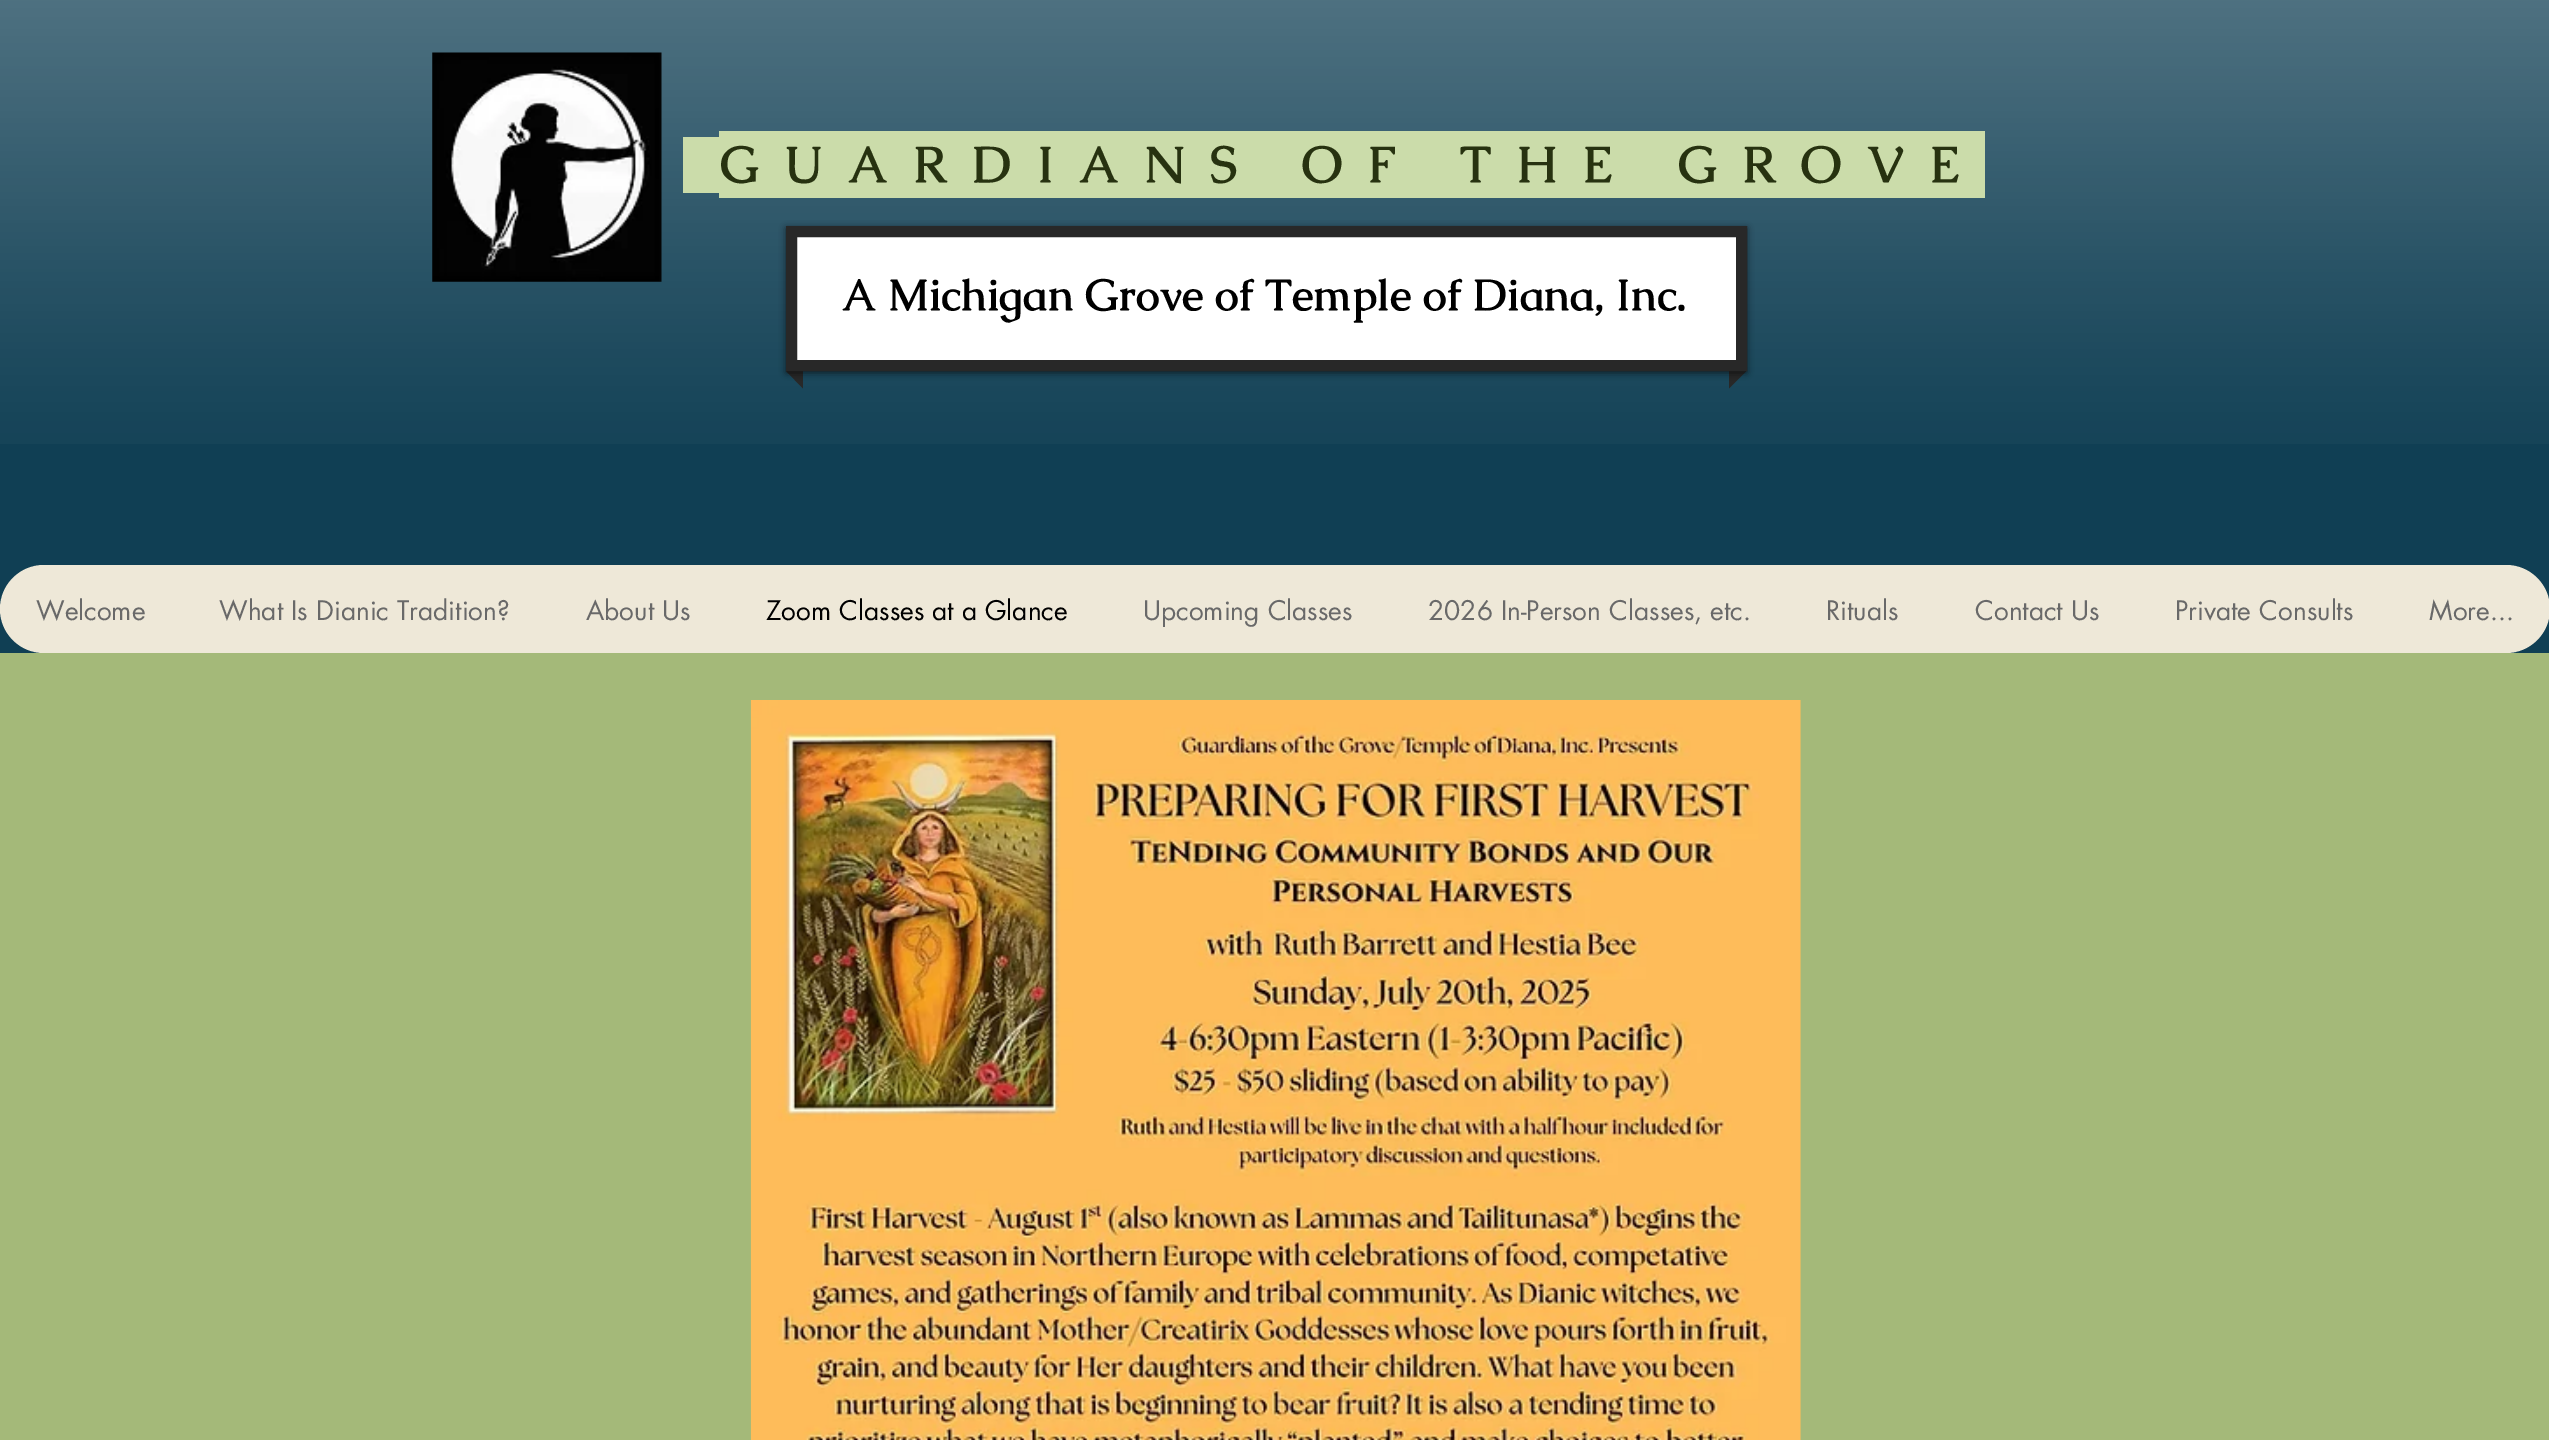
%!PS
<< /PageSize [2549 1440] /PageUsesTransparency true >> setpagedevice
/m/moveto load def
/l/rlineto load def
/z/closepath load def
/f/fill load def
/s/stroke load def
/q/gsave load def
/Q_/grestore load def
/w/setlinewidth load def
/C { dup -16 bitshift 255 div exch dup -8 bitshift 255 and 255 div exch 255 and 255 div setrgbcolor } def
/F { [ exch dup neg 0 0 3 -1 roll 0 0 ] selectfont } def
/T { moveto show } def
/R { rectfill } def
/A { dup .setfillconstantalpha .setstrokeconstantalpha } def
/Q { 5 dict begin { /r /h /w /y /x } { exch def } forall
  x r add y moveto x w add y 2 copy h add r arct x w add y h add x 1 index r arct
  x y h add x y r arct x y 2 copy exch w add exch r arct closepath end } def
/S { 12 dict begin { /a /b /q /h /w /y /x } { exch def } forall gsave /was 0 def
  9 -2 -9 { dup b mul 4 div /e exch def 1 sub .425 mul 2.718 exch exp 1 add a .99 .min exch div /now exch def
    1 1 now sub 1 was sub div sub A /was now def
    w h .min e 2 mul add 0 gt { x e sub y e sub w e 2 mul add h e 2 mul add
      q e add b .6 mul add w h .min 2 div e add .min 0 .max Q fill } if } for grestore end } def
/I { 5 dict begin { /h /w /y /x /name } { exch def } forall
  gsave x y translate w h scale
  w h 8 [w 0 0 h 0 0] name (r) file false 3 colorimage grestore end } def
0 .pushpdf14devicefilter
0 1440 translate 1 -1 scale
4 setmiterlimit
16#A4B979 C
0 0 2549 1440 R
16#103F54 C
0 0 2549 653 R
(1.rgb) 0 0 2549 444 I
(2.rgb) 432 52 230 230 I
16#CBDCAA C
683 137 36 56 R
719 131 1266 67 R
/Caudex-Bold 50.75 F
16#273210 C
720 182 m 25.4 0 (GUARDIANS OF THE GROVE) ashow
16#282828 C
786 371 m 17 0 l 0 17.5 l z f
1729 371 m 17.5 0 l -17.5 17.5 l z f
16#000000 C
786 228 961 145 0 3.5 .6 S
16#FFFFFF C
791.5 231.5 m 950 0 l 0 134 l -950 0 l z q f Q_
16#282828 C
11 w
s
/Caudex-Bold 43.75 F
16#000000 C
(A Michigan Grove of Temple of Diana, Inc.) 842 310 T
16#EEE8D8 C
0 565 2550 88 44 Q f
/futura-Regular 26.25 F
16#696969 C
(Welcome) 36 620 T
(What Is Dianic Tradition?) 219 620 T
(About Us) 586 620 T
16#000000 C
(Zoom Classes at a Glance) 766 620 T
16#696969 C
(Upcoming Classes) 1143 620 T
(2026 In-Person Classes, etc.) 1428 620 T
(Rituals) 1826 620 T
(Contact Us) 1975 620 T
(Private Consults) 2175 620 T
(More...) 2429 620 T
(3.rgb) 750 700 1051 740 I
.poppdf14devicefilter showpage
